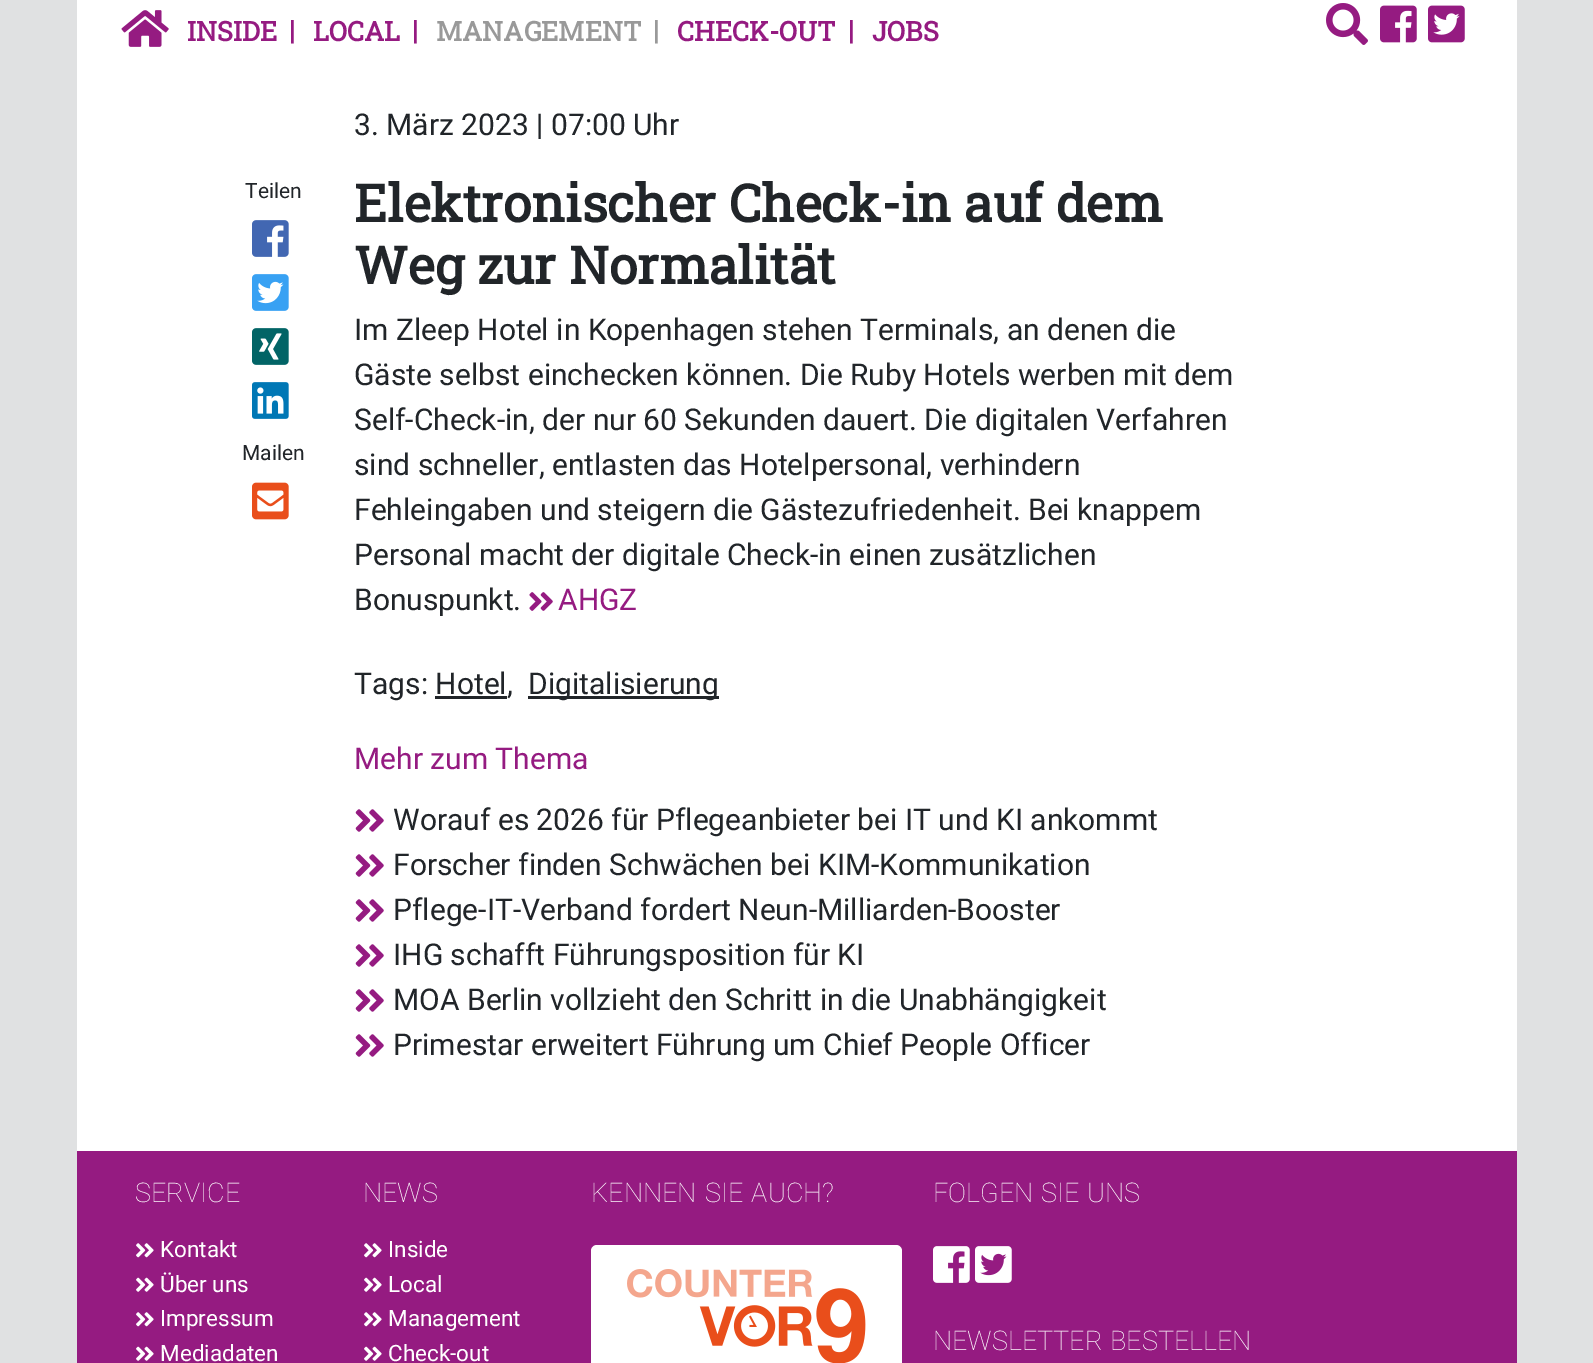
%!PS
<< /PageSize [1593 1363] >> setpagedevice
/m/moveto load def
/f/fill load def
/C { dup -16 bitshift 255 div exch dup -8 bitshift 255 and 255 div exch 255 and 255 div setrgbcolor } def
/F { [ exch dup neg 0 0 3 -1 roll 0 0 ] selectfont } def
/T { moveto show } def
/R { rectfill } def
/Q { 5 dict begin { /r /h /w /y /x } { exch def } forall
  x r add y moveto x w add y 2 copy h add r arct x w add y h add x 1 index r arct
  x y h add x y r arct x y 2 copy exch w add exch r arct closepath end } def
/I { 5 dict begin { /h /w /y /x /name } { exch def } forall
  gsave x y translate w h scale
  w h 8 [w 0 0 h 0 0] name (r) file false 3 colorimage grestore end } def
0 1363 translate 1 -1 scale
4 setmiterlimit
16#E0E1E2 C
0 0 1593 1363 R
16#FFFFFF C
77 0 1440 1151 R
(1.rgb) 121 10 48 37 I
/RobotoSlab-Bold 27 F
16#951B81 C
(INSIDE) 187 41 T
(|) 289 40 T
(LOCAL) 313 41 T
(|) 412 40 T
16#999999 C
(MANAGEMENT) 436 41 T
(|) 653 40 T
16#951B81 C
(CHECK-OUT) 677 41 T
(|) 848 40 T
(JOBS) 872 41 T
(2.rgb) 1326 3 42 42 I
(3.rgb) 1380 5 37 38 I
(4.rgb) 1428 5 37 38 I
/Roboto-Regular 30 F
16#212529 C
(3. März 2023 | 07:00 Uhr) 354 135 T
/Roboto-Regular 21 F
(Teilen) 245 198 T
(5.rgb) 252 220 37 37 I
(6.rgb) 252 274 37 37 I
(7.rgb) 252 328 37 37 I
(8.rgb) 252 382 37 37 I
(Mailen) 242 460 T
(9.rgb) 252 482 37 38 I
/RobotoSlab-Bold 51.75 F
(Elektronischer Check-in auf dem) 354 222 T
(Weg zur Normalität) 354 284 T
/Roboto-Regular 30 F
(Im Zleep Hotel in Kopenhagen stehen Terminals, an denen die) 354 340 T
(Gäste selbst einchecken können. Die Ruby Hotels werben mit dem) 354 385 T
(Self-Check-in, der nur 60 Sekunden dauert. Die digitalen Verfahren) 354 430 T
(sind schneller, entlasten das Hotelpersonal, verhindern) 354 475 T
(Fehleingaben und steigern die Gästezufriedenheit. Bei knappem) 354 520 T
(Personal macht der digitale Check-in einen zusätzlichen) 354 565 T
(Bonuspunkt.) 354 610 T
(10.rgb) 529 592 24 19 I
16#951B81 C
(AHGZ) 558 610 T
16#212529 C
(Tags: Hotel,) 354 694 T
528 696 191 3 R
(Digitalisierung) 528 694 T
435 696 72 3 R
16#951B81 C
(Mehr zum Thema) 354 769 T
(11.rgb) 355 809 29 23 I
16#212529 C
(Worauf es 2026 für Pflegeanbieter bei IT und KI ankommt) 393 830 T
(11.rgb) 355 854 29 23 I
(Forscher finden Schwächen bei KIM-Kommunikation) 393 875 T
(11.rgb) 355 899 29 23 I
(Pflege-IT-Verband fordert Neun-Milliarden-Booster) 393 920 T
(11.rgb) 355 944 29 23 I
(IHG schafft Führungsposition für KI) 393 965 T
(11.rgb) 355 989 29 23 I
(MOA Berlin vollzieht den Schritt in die Unabhängigkeit) 393 1010 T
(11.rgb) 355 1034 29 23 I
(Primestar erweitert Führung um Chief People Officer) 393 1055 T
16#951B81 C
77 1151 1440 212 R
/Roboto-Thin 27 F
16#FFFFFF C
(SERVICE) 135 1202 T
(12.rgb) 136 1243 18 15 I
/Roboto-Regular 22.5 F
(Kontakt) 160 1257 T
(13.rgb) 136 1277 18 15 I
(Über uns) 160 1292 T
(12.rgb) 136 1312 18 15 I
(Impressum) 160 1326 T
(13.rgb) 136 1346 18 15 I
(Mediadaten) 160 1361 T
/Roboto-Thin 27 F
(NEWS) 363 1202 T
(12.rgb) 364 1243 18 15 I
/Roboto-Regular 22.5 F
(Inside) 388 1257 T
(13.rgb) 364 1277 18 15 I
(Local) 388 1292 T
(12.rgb) 364 1312 18 15 I
(Management) 388 1326 T
(13.rgb) 364 1346 18 15 I
(Check-out) 388 1361 T
/Roboto-Thin 27 F
591 1202 m 2 0 32 (KENNEN SIE AUCH?) widthshow
591 1245 311 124 6 Q f
(14.rgb) 627 1269 239 94 I
933 1202 m 1 0 32 (FOLGEN SIE UNS) widthshow
(15.rgb) 933 1246 37 37 I
(16.rgb) 975 1246 37 37 I
933 1350 m 1 0 32 (NEWSLETTER BESTELLEN) widthshow
showpage
